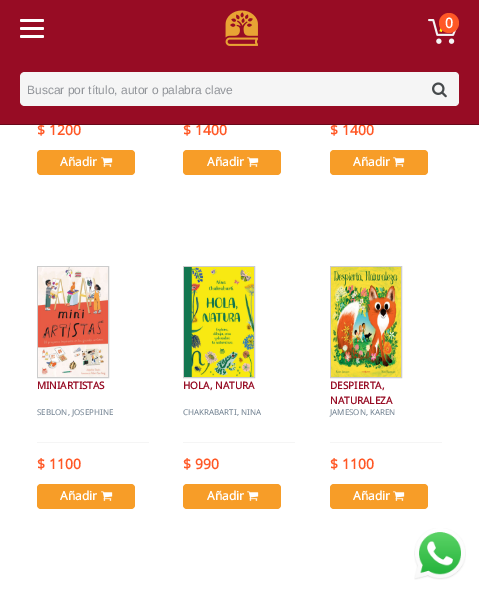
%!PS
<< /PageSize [479 595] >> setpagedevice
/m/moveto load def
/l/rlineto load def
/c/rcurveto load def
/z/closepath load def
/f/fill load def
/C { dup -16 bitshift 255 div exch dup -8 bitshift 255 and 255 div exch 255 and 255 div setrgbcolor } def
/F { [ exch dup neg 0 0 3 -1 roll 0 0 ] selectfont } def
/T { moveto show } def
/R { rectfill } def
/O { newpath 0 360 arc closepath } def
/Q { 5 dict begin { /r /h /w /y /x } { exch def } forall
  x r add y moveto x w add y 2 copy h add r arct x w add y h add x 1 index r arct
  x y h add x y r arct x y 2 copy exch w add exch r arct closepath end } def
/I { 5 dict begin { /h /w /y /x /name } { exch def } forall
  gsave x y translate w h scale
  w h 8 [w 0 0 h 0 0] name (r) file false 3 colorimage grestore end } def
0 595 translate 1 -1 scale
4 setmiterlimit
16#FFFFFF C
0 0 479 595 R
16#970C24 C
0 0 479 124 R
/NotoSans-Bold 14 F
16#FF5826 C
($ 1200) 37 135 T
($ 1400) 183 135 T
($ 1400) 330 135 T
16#680819 C
0 124 479 1 R
16#FFFFFF C
20 19 24 3 1.5 Q f
20 27 24 3 1.5 Q f
20 35 24 3 1.5 Q f
(1.rgb) 225 10 33 36 I
(2.rgb) 428 19 31 25 I
16#FF5826 C
449 23 10 O f
16#FFFFFF C
(0) 445 28 T
16#F5F5F5 C
25 72 m 395 0 l 0 34 l -395 0 l -3 0 -5 -2 -5 -5 c 0 -24 l 0 -3 2 -5 5 -5 c z f
/LiberationSans-Regular 12 F
16#919499 C
(Buscar por título, autor o palabra clave) 27 94 T
16#F5F5F5 C
420 72 m 35 0 l 2 0 4 2 4 4 c 0 26 l 0 2 -2 4 -4 4 c -35 0 l z f
(3.rgb) 432 82 15 16 I
16#F79D28 C
37 150 98 25 4 Q f
/NotoSans-Bold 12 F
16#FFFFFF C
(Añadir) 60 166 T
(4.rgb) 101 157 12 10 I
16#F79D28 C
183 150 98 25 4 Q f
16#FFFFFF C
(Añadir) 207 166 T
(4.rgb) 247 157 12 10 I
16#F79D28 C
330 150 98 25 4 Q f
16#FFFFFF C
(Añadir) 353 166 T
(4.rgb) 393 157 12 10 I
16#CCCCCC C
37.5 266.5 71 111 rectstroke
(5.rgb) 38 267 70 110 I
/NotoSans-Bold 10 F
16#970C24 C
(MINIARTISTAS) 37 389 T
16#F5F5F5 C
37 442 112 1 R
/NotoSans-Regular 8 F
16#708090 C
(SEBLON, JOSEPHINE) 37 415 T
/NotoSans-Bold 14 F
16#FF5826 C
($ 1100) 37 469 T
16#F79D28 C
37 484 98 25 4 Q f
/NotoSans-Bold 12 F
16#FFFFFF C
(Añadir) 60 500 T
(4.rgb) 101 491 12 10 I
16#CCCCCC C
183.5 266.5 71 111 rectstroke
(6.rgb) 184 267 70 110 I
/NotoSans-Bold 10 F
16#970C24 C
(HOLA, NATURA) 183 389 T
16#F5F5F5 C
183 442 112 1 R
/NotoSans-Regular 8 F
16#708090 C
(CHAKRABARTI, NINA) 183 415 T
/NotoSans-Bold 14 F
16#FF5826 C
($ 990) 183 469 T
16#F79D28 C
183 484 98 25 4 Q f
/NotoSans-Bold 12 F
16#FFFFFF C
(Añadir) 207 500 T
(4.rgb) 247 491 12 10 I
16#CCCCCC C
330.5 266.5 71 111 rectstroke
(7.rgb) 331 267 70 110 I
/NotoSans-Bold 10 F
16#970C24 C
(DESPIERTA,) 330 389 T
(NATURALEZA) 330 404 T
16#F5F5F5 C
330 442 112 1 R
/NotoSans-Regular 8 F
16#708090 C
(JAMESON, KAREN) 330 415 T
/NotoSans-Bold 14 F
16#FF5826 C
($ 1100) 330 469 T
16#F79D28 C
330 484 98 25 4 Q f
/NotoSans-Bold 12 F
16#FFFFFF C
(Añadir) 353 500 T
(4.rgb) 393 491 12 10 I
(8.rgb) 414 528 52 52 I
showpage
